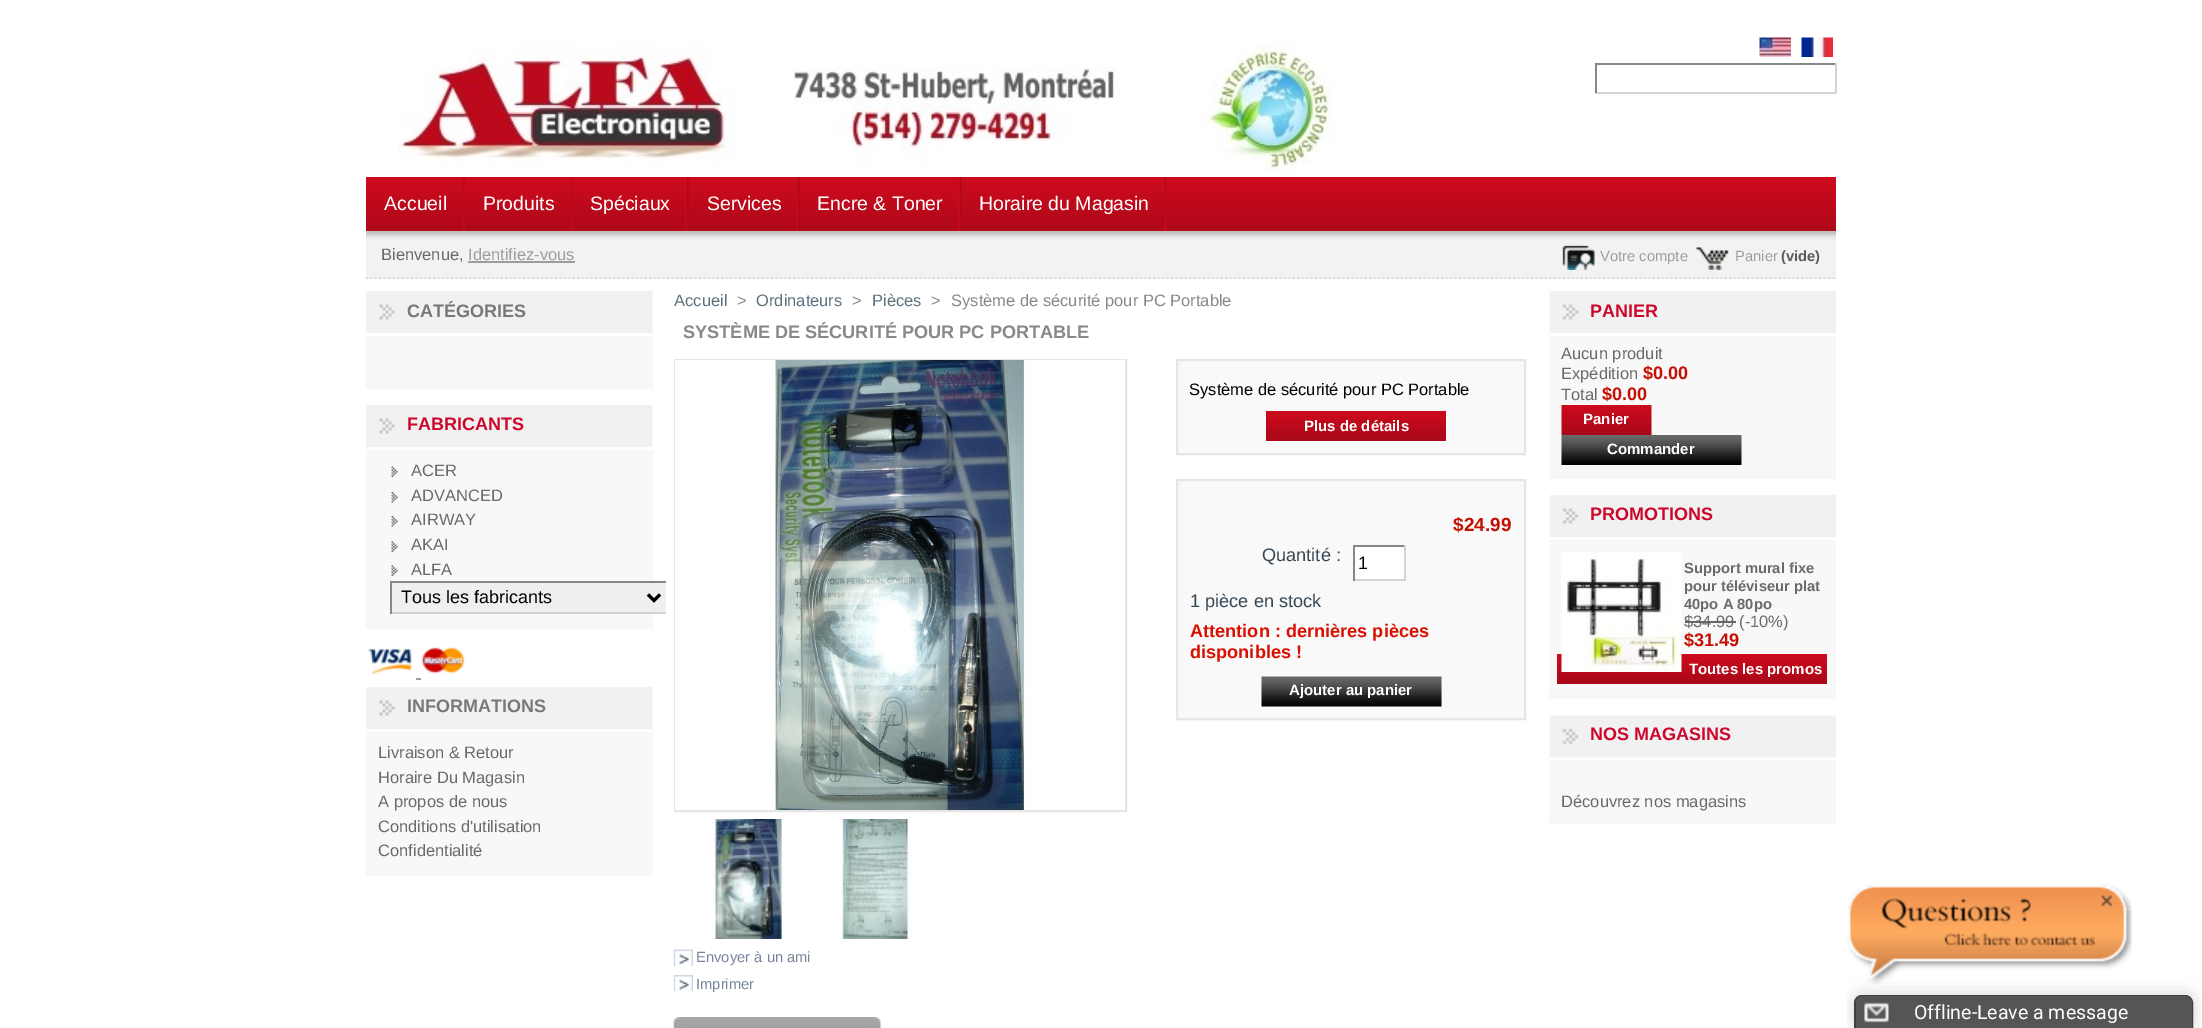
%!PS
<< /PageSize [2202 1028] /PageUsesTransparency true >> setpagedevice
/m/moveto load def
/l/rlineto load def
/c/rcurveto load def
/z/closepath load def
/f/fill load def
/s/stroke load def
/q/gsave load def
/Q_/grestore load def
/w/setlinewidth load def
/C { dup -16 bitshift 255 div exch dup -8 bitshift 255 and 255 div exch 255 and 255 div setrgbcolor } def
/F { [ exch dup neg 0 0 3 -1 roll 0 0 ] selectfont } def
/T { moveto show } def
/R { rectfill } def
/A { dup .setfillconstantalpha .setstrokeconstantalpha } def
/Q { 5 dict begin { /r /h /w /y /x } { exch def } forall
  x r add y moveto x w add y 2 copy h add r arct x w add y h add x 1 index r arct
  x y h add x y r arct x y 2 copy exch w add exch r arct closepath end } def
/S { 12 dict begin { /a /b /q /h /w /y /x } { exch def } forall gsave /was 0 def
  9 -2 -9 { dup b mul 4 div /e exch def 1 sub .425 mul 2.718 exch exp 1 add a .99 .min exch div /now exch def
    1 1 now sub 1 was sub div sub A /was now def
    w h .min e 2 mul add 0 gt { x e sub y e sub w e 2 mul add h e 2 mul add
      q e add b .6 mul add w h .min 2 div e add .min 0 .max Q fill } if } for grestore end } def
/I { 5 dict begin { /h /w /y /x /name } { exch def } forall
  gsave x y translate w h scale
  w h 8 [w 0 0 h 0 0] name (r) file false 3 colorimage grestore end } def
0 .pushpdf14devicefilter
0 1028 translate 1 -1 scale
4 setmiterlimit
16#FFFFFF C
0 0 2202 1028 R
(1.rgb) 397 43 937 131 I
(2.rgb) 1759 37 32 20 I
(3.rgb) 1801 37 32 20 I
16#878787 C
1595 63 241 2 R
16#D3D3D3 C
1835 63 2 30 R
1595 92 241 2 R
16#878787 C
1595 63 2 30 R
(4.rgb) 366 177 1470 54 I
16#BD091B C
462 177 3 54 R
/LiberationSans-Regular 19.5 F
16#FFFFFF C
(Accueil) 384 210 T
16#BD091B C
570 177 3 54 R
16#FFFFFF C
(Produits) 483 210 T
(5.rgb) 685 177 4 54 I
(Spéciaux) 590 210 T
(6.rgb) 796 177 4 54 I
(Services) 707 210 T
(6.rgb) 958 177 4 54 I
(Encre & Toner) 817 210 T
16#BD091B C
1164 177 3 54 R
16#FFFFFF C
(Horaire du Magasin) 979 210 T
(7.rgb) 366 231 1470 48 I
/LiberationSans-Regular 16.5 F
16#6A6A6A C
(Bienvenue,) 381 260 T
16#9D9D9D C
(Identifiez-vous) 468 260 T
468 261 107 2 R
(8.rgb) 1562 245 33 25 I
/LiberationSans-Regular 14.75 F
(Votre compte) 1600 261 T
(9.rgb) 1696 247 33 23 I
(Panier) 1735 261 T
/LiberationSans-Bold 14.75 F
16#5A5A5A C
(\(vide\)) 1781 261 T
16#F7F7F7 C
366 381 287 8 R
(10.rgb) 366 291 287 42 I
/LiberationSans-Bold 18 F
16#787878 C
(CATÉGORIES) 407 317 T
16#F8F8F8 C
366 336 287 45 R
16#F7F7F7 C
366 621 287 8 R
(10.rgb) 366 405 287 42 I
16#CD062B C
(FABRICANTS) 407 430 T
16#F8F8F8 C
366 450 287 171 R
(11.rgb) 391 466 7 11 I
/LiberationSans-Regular 16.5 F
16#6A6A6A C
(ACER) 411 476 T
(12.rgb) 391 492 7 11 I
(ADVANCED) 411 501 T
(12.rgb) 391 516 7 11 I
(AIRWAY) 411 525 T
(11.rgb) 391 541 7 11 I
(AKAI) 411 550 T
(11.rgb) 391 565 7 11 I
(ALFA) 411 575 T
16#EFEFEF C
392 583 274 29 R
16#878787 C
390 581 276 2 R
16#D3D3D3 C
390 612 276 2 R
16#878787 C
390 581 2 33 R
16#000000 C
3 w
648 594.5 m 6 6 l 6 -6 l s
/LiberationSans-Regular 18 F
(Tous les fabricants) 401 603 T
(13.rgb) 367 648 46 28 I
(14.rgb) 421 645 45 29 I
16#9D9D9D C
416 678 5 2 R
16#F7F7F7 C
366 869 287 7 R
(10.rgb) 366 687 287 42 I
/LiberationSans-Bold 18 F
16#787878 C
(INFORMATIONS) 407 712 T
16#F8F8F8 C
366 732 287 137 R
/LiberationSans-Regular 16.5 F
16#6A6A6A C
(Livraison & Retour) 378 758 T
(Horaire Du Magasin) 378 783 T
(A propos de nous) 378 807 T
(Conditions d'utilisation) 378 832 T
(Confidentialité) 378 856 T
16#5D717E C
(Accueil) 674 306 T
16#888888 C
(>) 737 306 T
16#5D717E C
(Ordinateurs) 756 306 T
16#888888 C
(>) 852 306 T
16#5D717E C
(Pièces) 872 306 T
16#888888 C
(>) 931 306 T
(Système de sécurité pour PC Portable) 951 306 T
/LiberationSans-Bold 18.15 F
(SYSTÈME DE SÉCURITÉ POUR PC PORTABLE) 683 338 T
16#F9F9FA C
1177 360 m 348 0 l 0 94 l -348 0 l z q f Q_
16#E6E6E6 C
2 w
s
/LiberationSans-Regular 16.5 F
16#000000 C
(Système de sécurité pour PC Portable) 1189 395 T
(15.rgb) 1266 411 180 30 I
/LiberationSans-Bold 15 F
16#FFFFFF C
(Plus de détails) 1304 431 T
16#F9F9FA C
1177 480 m 348 0 l 0 239 l -348 0 l z q f Q_
16#E6E6E6 C
s
/LiberationSans-Bold 19 F
16#C50F02 C
($24.99) 1453 531 T
/LiberationSans-Regular 18.15 F
16#374853 C
(Quantité :) 1262 561 T
16#FFFFFF C
1355 547 49 32 R
16#878787 C
1353 545 53 2 R
16#D3D3D3 C
1404 545 2 36 R
1353 579 53 2 R
16#878787 C
1353 545 2 36 R
/LiberationSans-Regular 18 F
16#000000 C
(1) 1358 569 T
/LiberationSans-Regular 18.15 F
16#374853 C
(1 pièce en stock) 1190 607 T
/LiberationSans-Bold 18.15 F
16#DA0F00 C
(Attention : dernières pièces) 1190 637 T
(disponibles !) 1190 658 T
16#EFEFEF C
1262 677 180 30 R
(16.rgb) 1261 676 181 31 I
/LiberationSans-Bold 15 F
16#FFFFFF C
(Ajouter au panier) 1289 695 T
16#E6E6E6 C
675 360 451 451 rectstroke
(17.rgb) 675 360 450 450 I
(18.rgb) 712 819 73 120 I
(19.rgb) 840 819 72 120 I
(20.rgb) 673 949 20 17 I
/LiberationSans-Regular 14.75 F
16#76839B C
(Envoyer à un ami) 696 962 T
(21.rgb) 673 975 20 17 I
(Imprimer) 696 989 T
(22.rgb) 673 1017 208 11 I
16#F7F7F7 C
1549 471 287 8 R
(23.rgb) 1549 291 287 42 I
/LiberationSans-Bold 18 F
16#CD062B C
(PANIER) 1590 317 T
16#F8F8F8 C
1549 336 287 135 R
/LiberationSans-Regular 16.5 F
16#6A6A6A C
(Aucun produit) 1561 359 T
(Expédition) 1561 379 T
/LiberationSans-Bold 18.15 F
16#C50F02 C
($0.00) 1643 379 T
/LiberationSans-Regular 16.5 F
16#6A6A6A C
(Total) 1561 400 T
/LiberationSans-Bold 18.15 F
16#C50F02 C
($0.00) 1602 400 T
(24.rgb) 1561 405 91 30 I
/LiberationSans-Bold 15 F
16#FFFFFF C
(Panier) 1583 424 T
(25.rgb) 1561 435 181 30 I
(Commander) 1607 454 T
16#F7F7F7 C
1549 692 287 7 R
(23.rgb) 1549 495 287 42 I
/LiberationSans-Bold 18 F
16#CD062B C
(PROMOTIONS) 1590 520 T
16#F8F8F8 C
1549 540 287 152 R
(27.rgb) 1557 654 270 30 I
(26.rgb) 1561 552 121 120 I
/LiberationSans-Bold 14.75 F
16#6A6A6A C
(Support mural fixe) 1684 573 T
(pour téléviseur plat) 1684 591 T
(40po A 80po) 1684 609 T
/LiberationSans-Regular 16.5 F
($34.99 \(-10%\)) 1684 627 T
16#666666 C
1685 621 51 2 R
/LiberationSans-Bold 18.15 F
16#C50F02 C
($31.49) 1684 646 T
/LiberationSans-Bold 15 F
16#FFFFFF C
(Toutes les promos) 1689 674 T
16#F7F7F7 C
1549 816 287 8 R
(28.rgb) 1549 715 287 43 I
/LiberationSans-Bold 18 F
16#CD062B C
(NOS MAGASINS) 1590 740 T
16#F8F8F8 C
1549 760 287 56 R
/LiberationSans-Regular 16.5 F
16#6A6A6A C
(Découvrez nos magasins) 1561 807 T
(29.rgb) 1847 884 285 101 I
(30.rgb) 2101 895 11 11 I
q
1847 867 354 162 rectclip
16#DEDEDE C
1851 992 345 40 11 7.5 1 S
Q_
16#404040 C
1862 996 m 323 0 l 4 0 7 3 7 7 c 0 25 l -337 0 l 0 -25 l 0 -4 3 -7 7 -7 c z s
16#555555 C
1864 996 m 320 0 l 4.5 0 8 3.5 8 8 c 0 24 l -336 0 l 0 -24 l 0 -4.5 3.5 -8 8 -8 c z f
1864 996 m 320 0 l 4 0 8 4 8 8 c 0 24 l -336 0 l 0 -24 l 0 -4 4 -8 8 -8 c z f
(31.rgb) 1864 1002 25 21 I
/Roboto-Regular 19.5 F
16#FFFFFF C
(Offline-Leave a message) 1914 1019 T
.poppdf14devicefilter showpage
